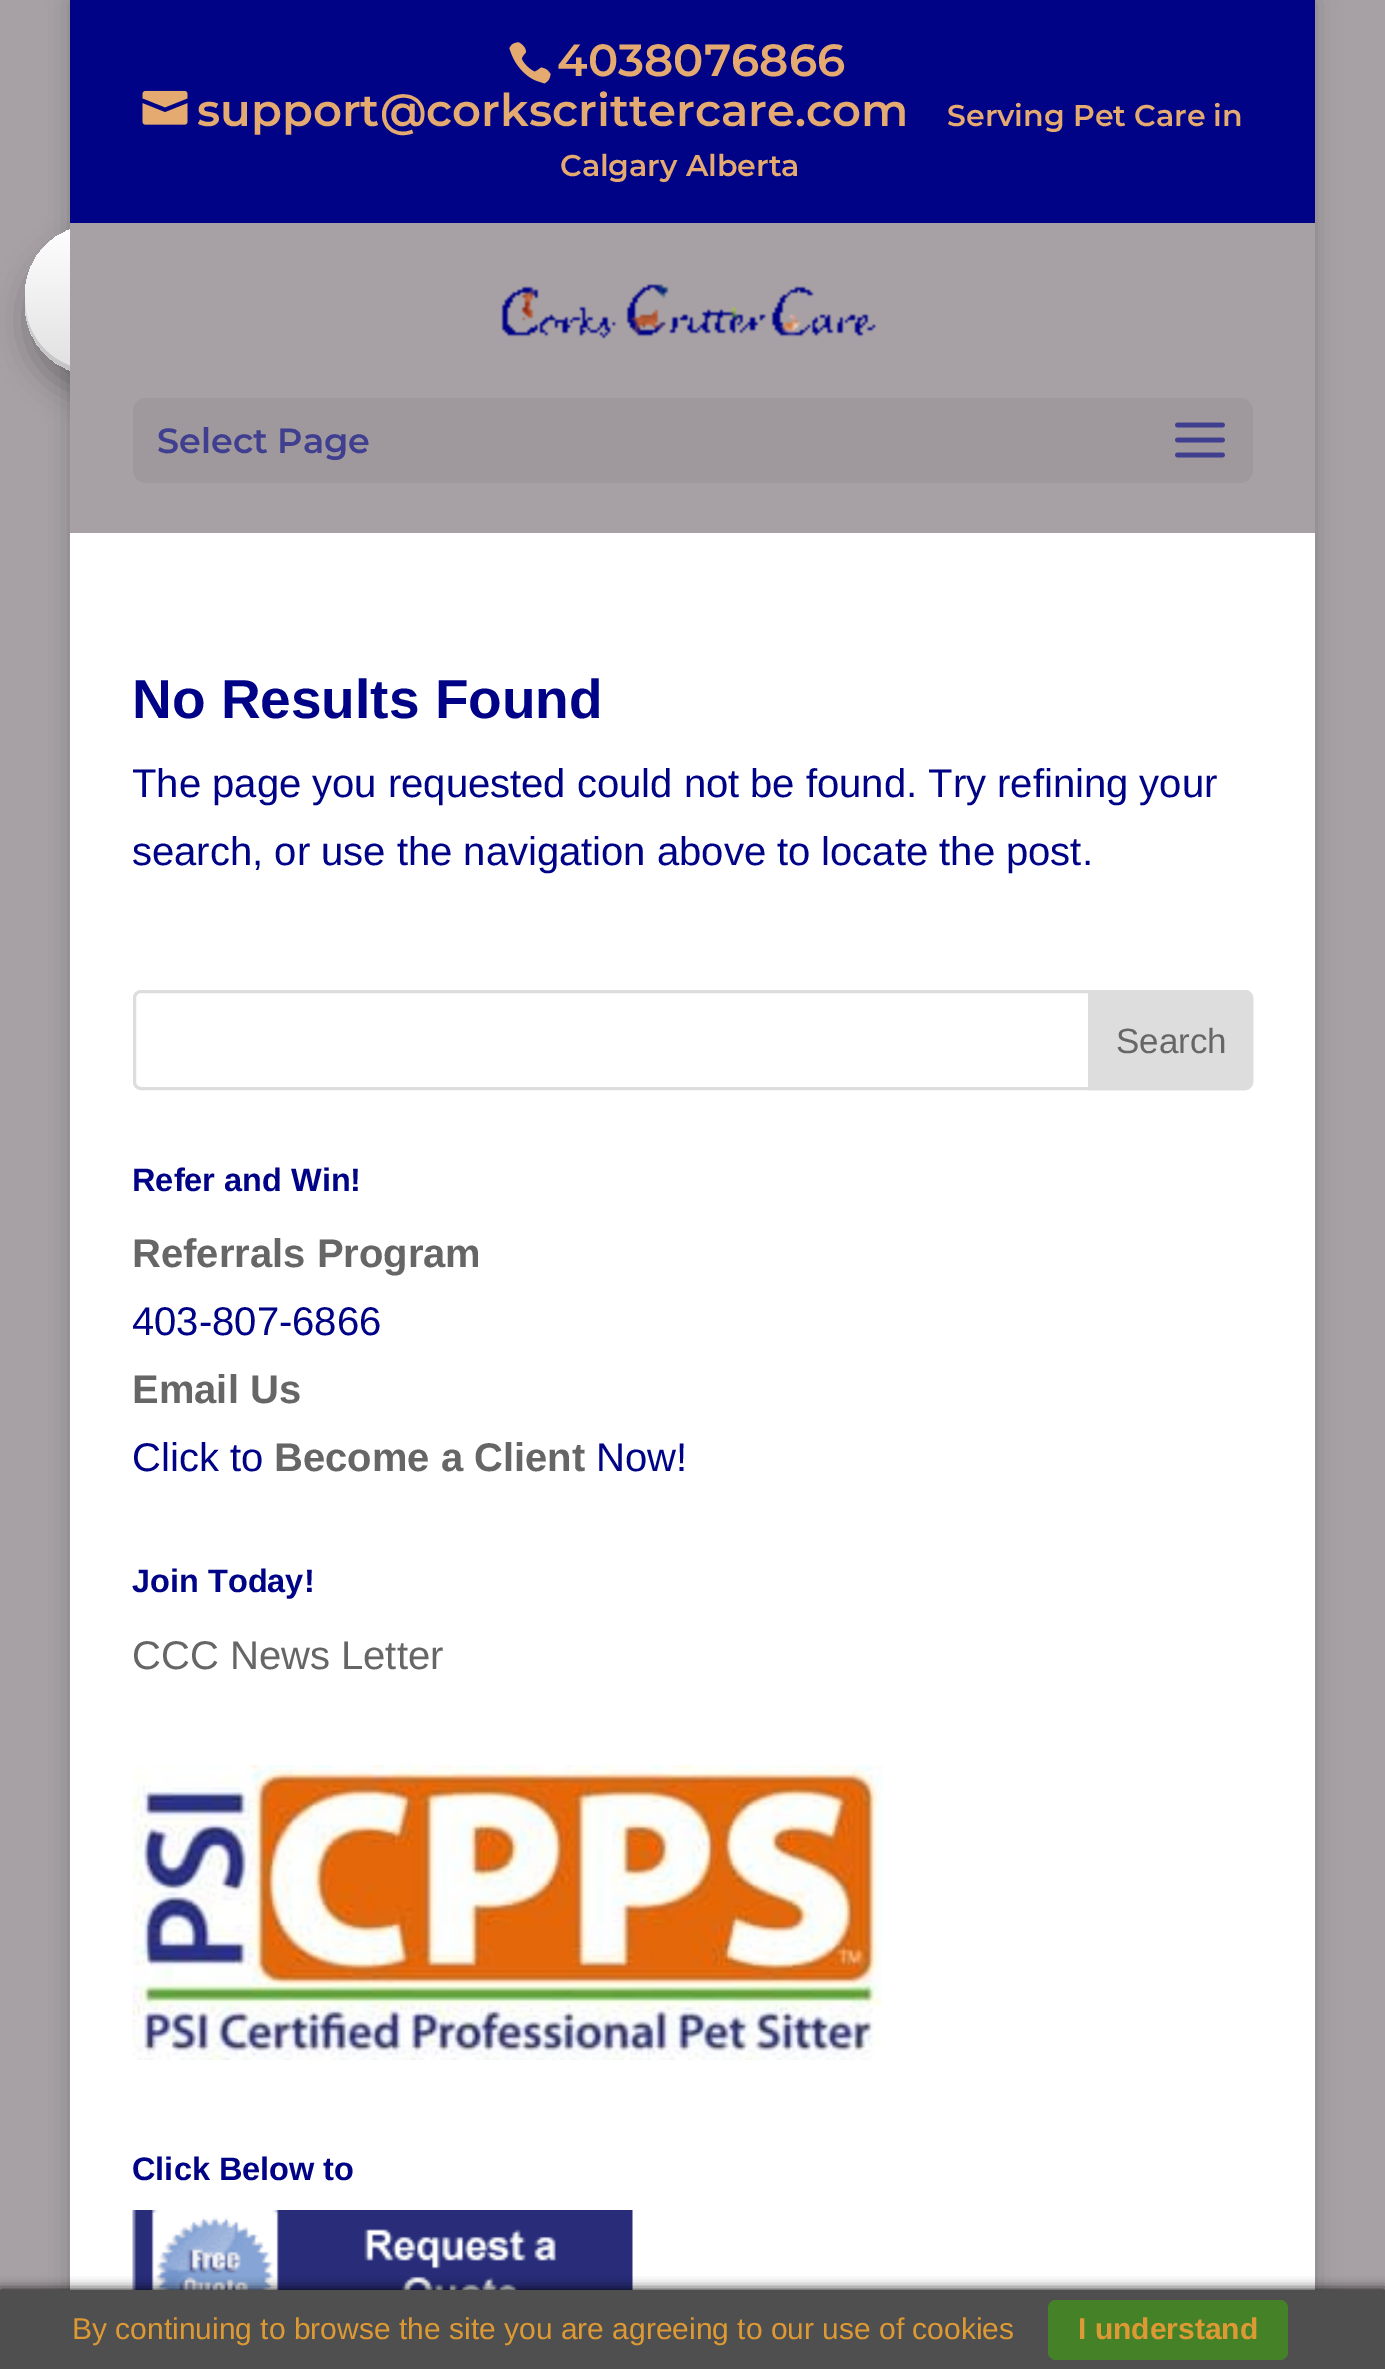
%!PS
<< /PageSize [1385 2369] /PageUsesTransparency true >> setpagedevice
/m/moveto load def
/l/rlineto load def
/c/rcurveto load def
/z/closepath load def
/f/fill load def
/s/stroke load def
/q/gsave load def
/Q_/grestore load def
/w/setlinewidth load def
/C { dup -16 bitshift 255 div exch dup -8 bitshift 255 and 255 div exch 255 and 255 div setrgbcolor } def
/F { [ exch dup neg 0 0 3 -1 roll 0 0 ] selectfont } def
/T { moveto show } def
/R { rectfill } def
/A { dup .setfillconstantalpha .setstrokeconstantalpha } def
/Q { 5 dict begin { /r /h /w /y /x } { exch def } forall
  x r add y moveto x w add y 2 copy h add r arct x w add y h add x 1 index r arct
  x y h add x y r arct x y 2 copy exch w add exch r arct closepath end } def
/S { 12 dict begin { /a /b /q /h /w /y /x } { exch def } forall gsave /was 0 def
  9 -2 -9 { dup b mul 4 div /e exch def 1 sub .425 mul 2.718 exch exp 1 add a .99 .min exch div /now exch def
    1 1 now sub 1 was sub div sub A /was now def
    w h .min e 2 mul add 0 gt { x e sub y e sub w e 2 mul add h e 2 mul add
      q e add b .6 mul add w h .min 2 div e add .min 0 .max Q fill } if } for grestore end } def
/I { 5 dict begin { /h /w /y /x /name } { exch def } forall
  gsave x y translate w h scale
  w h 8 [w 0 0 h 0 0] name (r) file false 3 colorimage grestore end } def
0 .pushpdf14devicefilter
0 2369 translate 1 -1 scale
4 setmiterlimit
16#A7A1A5 C
0 0 1385 2369 R
16#000000 C
70 0 1245 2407 0 12.5 .2 S
25 245 508 150 70 16 .25 S
16#000386 C
70 0 1245 223 R
(1.rgb) 509 42 42 42 I
/Montserrat-Thin 45 F
16#E5AA70 C
(4038076866) 557 76 T
(2.rgb) 142 90 46 35 I
(support@corkscrittercare.com) 197 126 T
/Montserrat-Thin 30 F
(Serving Pet Care in) 947 126 T
(Calgary Alberta) 560 176 T
q 25 225 508 150 70 Q clip newpath
<< /ShadingType 2 /ColorSpace /DeviceRGB /Coords [279 375 279 225] /Extend [true true] /Function << /FunctionType 2 /Domain [0 1] /C0 [.878 .878 .878] /C1 [1 1 1] /N 1 >> >> shfill Q_
0.13 A
16#000000 C
25 301 m 0 4 l 0 39 31 70 70 70 c 368 0 l 39 0 70 -31 70 -70 c 0 -10 l 0 -5 -1 -10 -2 -15 c 1 21 l 0 38 -30 69 -68 69 c -370 0 l -38 0 -69 -31 -69 -69 c z f
1 A
16#A7A1A5 C
70 223 1245 310 R
(3.rgb) 501 283 376 56 I
16#9F999D C
133 398 1120 85 13 Q f
/Montserrat-Thin 35 F
16#403F8F C
(Select Page) 157 453 T
(4.rgb) 1175 422 50 36 I
16#FFFFFF C
70 533 1245 1757 R
/LiberationSans-Bold 55 F
16#000386 C
(No Results Found) 132 718 T
/LiberationSans-Regular 40 F
(The page you requested could not be found. Try refining your) 132 797 T
(search, or use the navigation above to locate the post.) 132 865 T
16#DDDDDD C
3 w
134.5 991.5 1117 97 6.5 Q s
1089.5 991.5 m 155.5 0 l 3.5 0 6.5 3 6.5 6.5 c 0 84 l 0 3.5 -3 6.5 -6.5 6.5 c -155.5 0 l z q f Q_
s
/LiberationSans-Regular 35 F
16#666666 C
(Search) 1116 1053 T
/LiberationSans-Bold 32.5 F
16#000386 C
(Refer and Win!) 132 1191 T
/LiberationSans-Bold 40 F
16#666666 C
(Referrals Program) 132 1267 T
/LiberationSans-Regular 40 F
16#000386 C
(403-807-6866) 132 1335 T
/LiberationSans-Bold 40 F
16#666666 C
(Email Us) 132 1403 T
/LiberationSans-Regular 40 F
16#000386 C
(Click to) 132 1471 T
/LiberationSans-Bold 40 F
16#666666 C
(Become a Client) 274 1471 T
/LiberationSans-Regular 40 F
16#000386 C
(Now!) 596 1471 T
/LiberationSans-Bold 32.5 F
(Join Today!) 132 1592 T
/LiberationSans-Regular 40 F
16#666666 C
(CCC News Letter) 132 1669 T
(5.rgb) 132 1765 751 295 I
/LiberationSans-Bold 32.5 F
16#000386 C
(Click Below to) 132 2180 T
(6.rgb) 132 2210 501 80 I
16#000000 C
0 2290 1385 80 0 6 1 S
16#4F4F4F C
0 2290 1385 79 R
/LiberationSans-Regular 30 F
16#DD9933 C
(By continuing to browse the site you are agreeing to our use of cookies) 72 2339 T
16#458227 C
1048 2300 240 60 8 Q f
/LiberationSans-Bold 30 F
16#DD9933 C
(I understand) 1078 2339 T
.poppdf14devicefilter showpage
